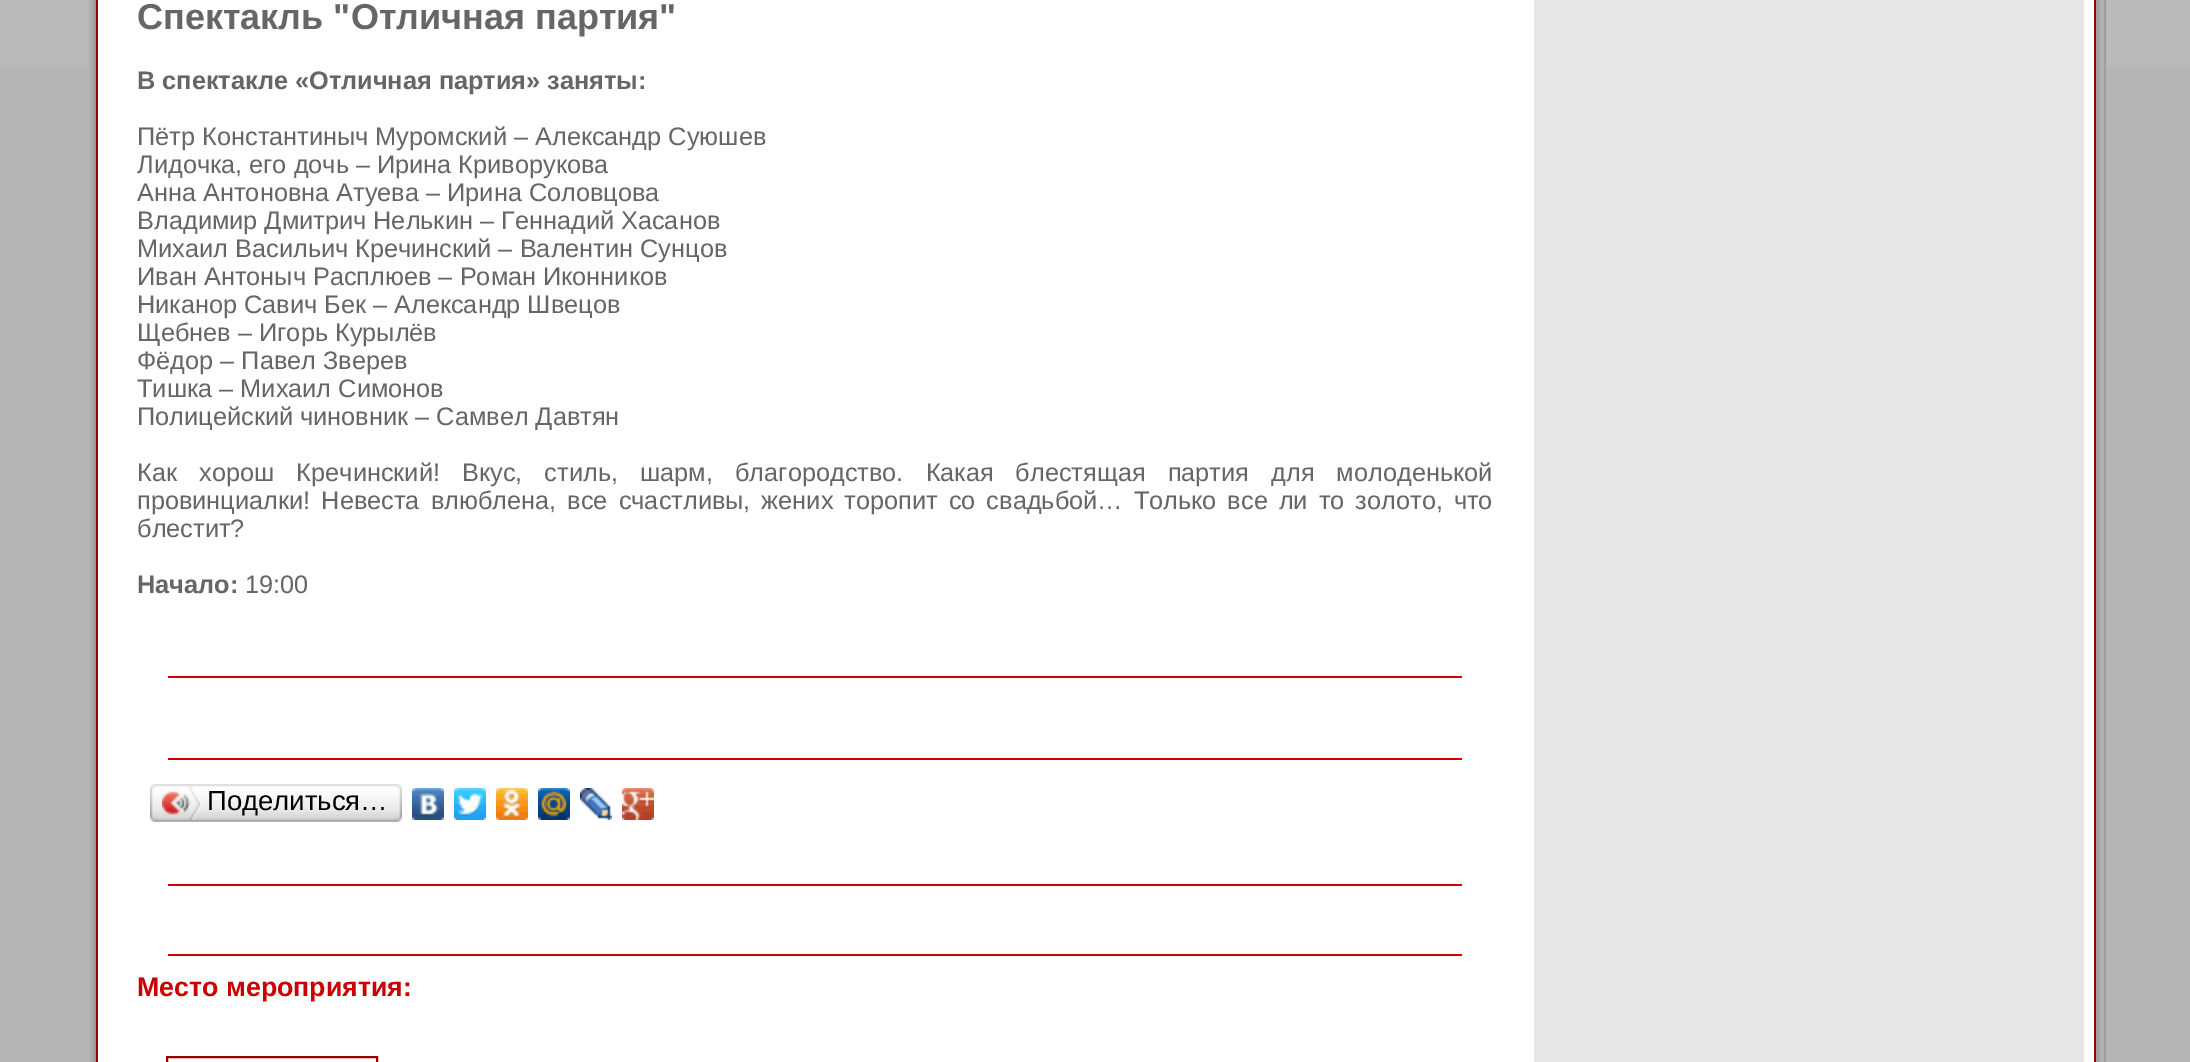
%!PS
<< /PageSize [2190 1062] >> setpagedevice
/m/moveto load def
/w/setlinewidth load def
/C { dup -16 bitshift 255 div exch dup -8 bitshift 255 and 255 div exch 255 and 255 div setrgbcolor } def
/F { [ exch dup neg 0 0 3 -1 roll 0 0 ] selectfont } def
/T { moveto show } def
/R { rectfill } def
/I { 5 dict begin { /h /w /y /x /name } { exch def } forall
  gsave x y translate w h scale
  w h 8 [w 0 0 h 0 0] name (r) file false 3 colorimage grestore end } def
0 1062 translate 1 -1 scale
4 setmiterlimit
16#B5B5B5 C
0 0 2190 1062 R
16#BBBABA C
0 0 2190 67 R
(1.rgb) 88 0 8 1062 I
16#FFFFFF C
98 0 1996 1062 R
16#990000 C
2094 0 2 1062 R
96 0 2 1062 R
/LiberationSans-Bold 36 F
16#666666 C
(Спектакль "Отличная партия") 137 29 T
/LiberationSans-Bold 25.33 F
(В спектакле «Отличная партия» заняты:) 137 89 T
/LiberationSans-Regular 25.33 F
(Пётр Константиныч Муромский – Александр Суюшев) 137 145 T
(Лидочка, его дочь – Ирина Криворукова) 137 173 T
(Анна Антоновна Атуева – Ирина Соловцова) 137 201 T
(Владимир Дмитрич Нелькин – Геннадий Хасанов) 137 229 T
(Михаил Васильич Кречинский – Валентин Сунцов) 137 257 T
(Иван Антоныч Расплюев – Роман Иконников) 137 285 T
(Никанор Савич Бек – Александр Швецов) 137 313 T
(Щебнев – Игорь Курылёв) 137 341 T
(Фёдор – Павел Зверев) 137 369 T
(Тишка – Михаил Симонов) 137 397 T
(Полицейский чиновник – Самвел Давтян) 137 425 T
137 481 m 15.1 0 32 (Как хорош Кречинский! Вкус, стиль, шарм, благородство. Какая блестящая партия для молоденькой) widthshow
137 509 m 4 0 32 (провинциалки! Невеста влюблена, все счастливы, жених торопит со свадьбой… Только все ли то золото, что) widthshow
(блестит?) 137 537 T
/LiberationSans-Bold 25.33 F
(Начало:) 137 593 T
/LiberationSans-Regular 25.33 F
(19:00) 245 593 T
16#CC0000 C
168 676 1294 2 R
168 758 1294 2 R
(2.rgb) 156 784 240 38 I
(3.rgb) 150 784 6 38 I
(4.rgb) 162 786 40 34 I
/LiberationSans-Regular 27.5 F
16#000000 C
(Поделиться…) 207 810 T
(5.rgb) 396 784 6 38 I
(6.rgb) 412 788 32 32 I
(7.rgb) 454 788 32 32 I
(8.rgb) 496 788 32 32 I
(9.rgb) 538 788 32 32 I
(10.rgb) 580 788 32 32 I
(11.rgb) 622 788 32 32 I
16#CC0000 C
168 884 1294 2 R
168 954 1294 2 R
/LiberationSans-Bold 26.75 F
(Место мероприятия:) 137 996 T
16#990000 C
2 w
167 1057 210 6 rectstroke
16#E7E7E7 C
1534 0 550 1062 R
(12.rgb) 2096 0 10 1062 I
showpage
